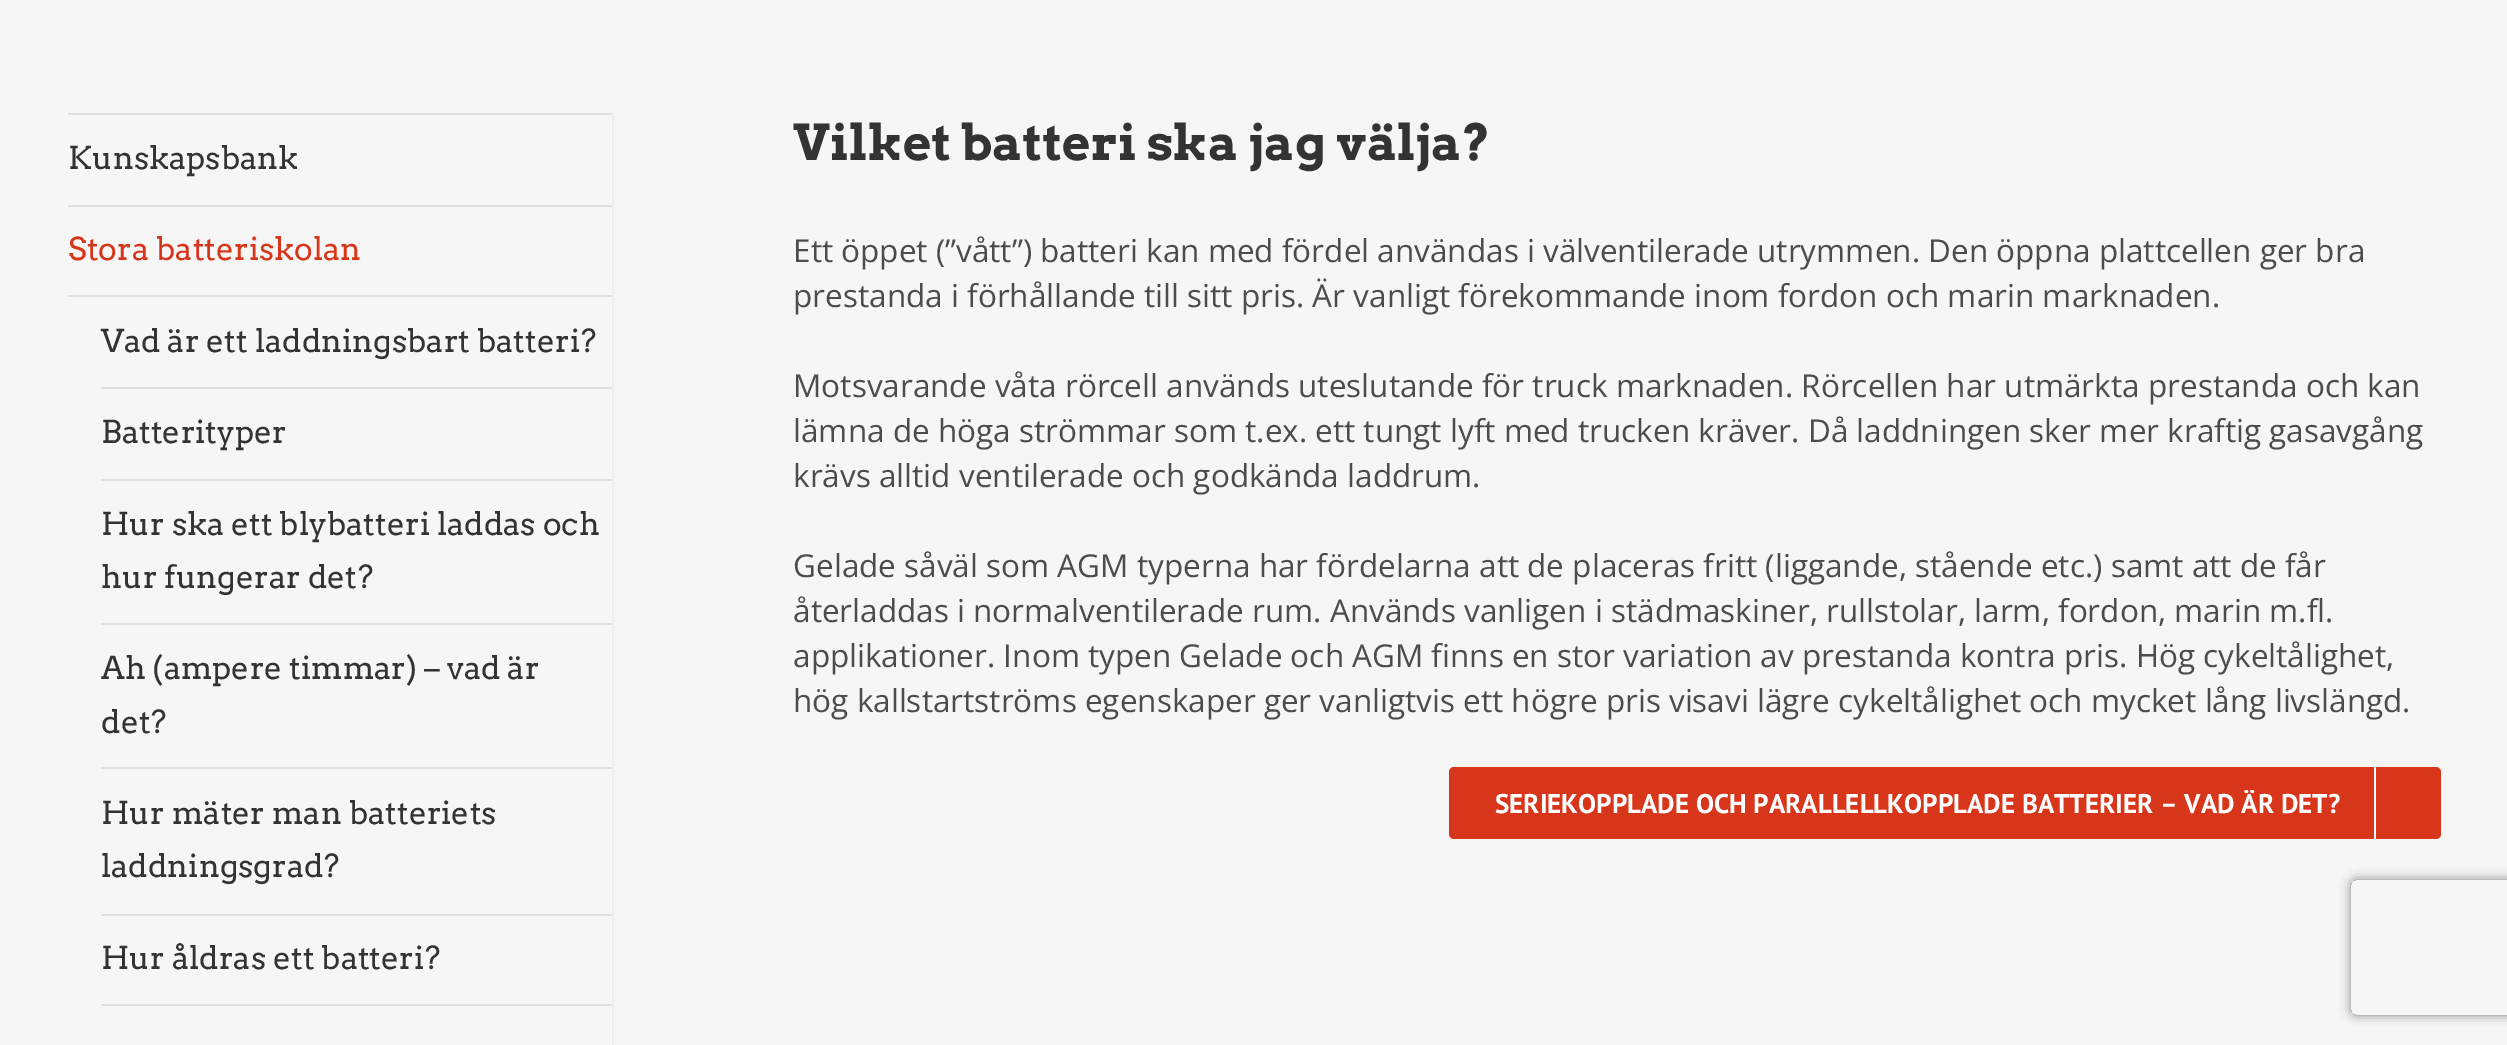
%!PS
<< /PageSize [2507 1045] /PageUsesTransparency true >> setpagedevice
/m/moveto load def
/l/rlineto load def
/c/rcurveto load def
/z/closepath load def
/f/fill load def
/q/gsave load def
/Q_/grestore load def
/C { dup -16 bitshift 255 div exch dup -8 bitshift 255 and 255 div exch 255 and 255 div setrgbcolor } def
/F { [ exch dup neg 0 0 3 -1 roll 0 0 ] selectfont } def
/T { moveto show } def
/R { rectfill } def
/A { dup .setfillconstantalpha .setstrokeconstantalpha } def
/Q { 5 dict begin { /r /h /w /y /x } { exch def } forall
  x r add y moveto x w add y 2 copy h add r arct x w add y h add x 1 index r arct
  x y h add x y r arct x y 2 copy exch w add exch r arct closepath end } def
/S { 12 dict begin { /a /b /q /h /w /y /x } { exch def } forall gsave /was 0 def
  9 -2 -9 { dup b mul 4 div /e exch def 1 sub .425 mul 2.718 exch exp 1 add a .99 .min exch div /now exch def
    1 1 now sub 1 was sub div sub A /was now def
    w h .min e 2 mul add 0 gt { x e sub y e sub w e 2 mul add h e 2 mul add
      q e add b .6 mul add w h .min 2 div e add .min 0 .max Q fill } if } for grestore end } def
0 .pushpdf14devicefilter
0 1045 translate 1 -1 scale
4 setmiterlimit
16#F6F6F6 C
0 0 2507 1045 R
16#E0DEDE C
68 113 546 2 R
16#EDEDED C
612 113 2 932 R
16#E0DEDE C
68 205 544 2 R
/Arvo-Regular 31.5 F
16#333333 C
(Kunskapsbank) 68 169 T
16#E0DEDE C
68 295 544 2 R
16#D8361B C
(Stora batteriskolan) 68 260 T
16#E0DEDE C
101 387 511 2 R
16#333333 C
(Vad är ett laddningsbart batteri?) 101 352 T
16#E0DEDE C
101 479 511 2 R
16#333333 C
(Batterityper) 101 443 T
16#E0DEDE C
101 623 511 2 R
16#333333 C
(Hur ska ett blybatteri laddas och) 101 535 T
(hur fungerar det?) 101 588 T
16#E0DEDE C
101 767 511 2 R
16#333333 C
(Ah \(ampere timmar\) – vad är) 101 679 T
(det?) 101 733 T
16#E0DEDE C
101 914 511 2 R
16#333333 C
(Hur mäter man batteriets) 101 824 T
(laddningsgrad?) 101 877 T
16#E0DEDE C
101 1004 511 2 R
16#333333 C
(Hur åldras ett batteri?) 101 969 T
/Arvo-Bold 49.5 F
(Vilket batteri ska jag välja?) 793 160 T
/OpenSans-Regular 31.5 F
16#4C4C4C C
(Ett öppet \(”vått”\) batteri kan med fördel användas i välventilerade utrymmen. Den öppna plattcellen ger bra) 793 262 T
(prestanda i förhållande till sitt pris. Är vanligt förekommande inom fordon och marin marknaden.) 793 307 T
(Motsvarande våta rörcell används uteslutande för truck marknaden. Rörcellen har utmärkta prestanda och kan) 793 397 T
(lämna de höga strömmar som t.ex. ett tungt lyft med trucken kräver. Då laddningen sker mer kraftig gasavgång) 793 442 T
(krävs alltid ventilerade och godkända laddrum.) 793 487 T
(Gelade såväl som AGM typerna har fördelarna att de placeras fritt \(liggande, stående etc.\) samt att de får) 793 577 T
(återladdas i normalventilerade rum. Används vanligen i städmaskiner, rullstolar, larm, fordon, marin m.fl.) 793 622 T
(applikationer. Inom typen Gelade och AGM finns en stor variation av prestanda kontra pris. Hög cykeltålighet,) 793 667 T
(hög kallstartströms egenskaper ger vanligtvis ett högre pris visavi lägre cykeltålighet och mycket lång livslängd.) 793 712 T
16#D8361B C
1449 767 992 72 5 Q f
/PTSans-Bold 27 F
16#FFFFFF C
(SERIEKOPPLADE OCH PARALLELLKOPPLADE BATTERIER – VAD ÄR DET?) 1495 813 T
2374 767 2 72 R
q
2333 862 m 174 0 l 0 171 l -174 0 l z 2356 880 m 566 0 l 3 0 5 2 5 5 c 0 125 l 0 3 -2 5 -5 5 c -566 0 l -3 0 -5 -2 -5 -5 c 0 -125 l 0 -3 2 -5 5 -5 c z eoclip newpath
16#808080 C
2351 880 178 135 5 5.5 1 S
Q_
.poppdf14devicefilter showpage
